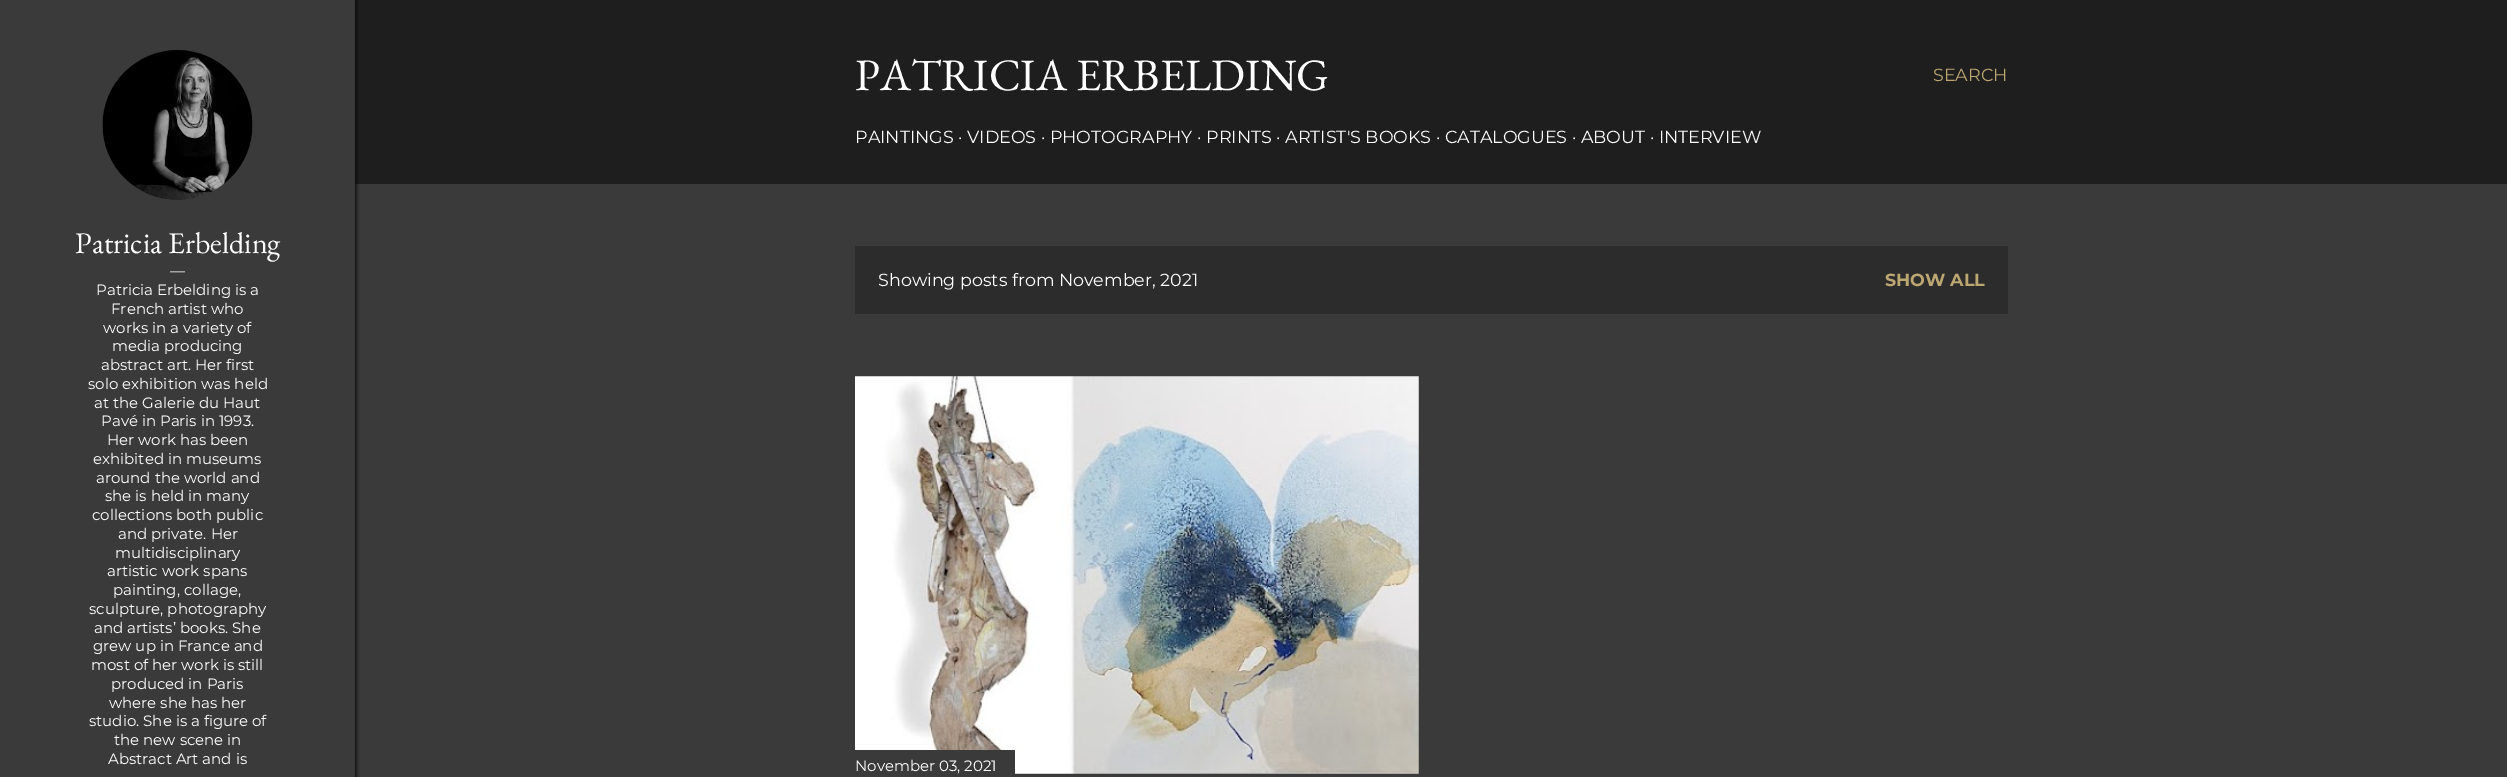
%!PS
<< /PageSize [2507 777] /PageUsesTransparency true >> setpagedevice
/q/gsave load def
/Q_/grestore load def
/C { dup -16 bitshift 255 div exch dup -8 bitshift 255 and 255 div exch 255 and 255 div setrgbcolor } def
/F { [ exch dup neg 0 0 3 -1 roll 0 0 ] selectfont } def
/T { moveto show } def
/R { rectfill } def
/A { dup .setfillconstantalpha .setstrokeconstantalpha } def
/Q { 5 dict begin { /r /h /w /y /x } { exch def } forall
  x r add y moveto x w add y 2 copy h add r arct x w add y h add x 1 index r arct
  x y h add x y r arct x y 2 copy exch w add exch r arct closepath end } def
/S { 12 dict begin { /a /b /q /h /w /y /x } { exch def } forall gsave /was 0 def
  9 -2 -9 { dup b mul 4 div /e exch def 1 sub .425 mul 2.718 exch exp 1 add a .99 .min exch div /now exch def
    1 1 now sub 1 was sub div sub A /was now def
    w h .min e 2 mul add 0 gt { x e sub y e sub w e 2 mul add h e 2 mul add
      q e add b .6 mul add w h .min 2 div e add .min 0 .max Q fill } if } for grestore end } def
/I { 5 dict begin { /h /w /y /x /name } { exch def } forall
  gsave x y translate w h scale
  w h 8 [w 0 0 h 0 0] name (r) file false 3 colorimage grestore end } def
0 .pushpdf14devicefilter
0 777 translate 1 -1 scale
4 setmiterlimit
16#3A3A3A C
0 0 2507 777 R
16#1E1E1E C
355 0 2152 184 R
q
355 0 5 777 rectclip
16#000000 C
1 0 355 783 0 2 1 S
Q_
(1.rgb) 102 50 151 150 I
/EBGaramond-Regular 30 F
16#FFFFFF C
(Patricia Erbelding) 75 253 T
/Montserrat-Regular 15 F
(—) 170 276 T
(Patricia Erbelding is a) 96 295 T
(French artist who) 111 314 T
(works in a variety of) 103 333 T
(media producing) 112 351 T
(abstract art. Her first) 101 370 T
(solo exhibition was held) 88 389 T
(at the Galerie du Haut) 94 408 T
(Pavé in Paris in 1993.) 101 426 T
(Her work has been) 107 445 T
(exhibited in museums) 93 464 T
(around the world and) 96 483 T
(she is held in many) 105 501 T
(collections both public) 92 520 T
(and private. Her) 118 539 T
(multidisciplinary) 115 558 T
(artistic work spans) 107 576 T
(painting, collage,) 113 595 T
(sculpture, photography) 89 614 T
(and artists’ books. She) 94 633 T
(grew up in France and) 93 651 T
(most of her work is still) 91 670 T
(produced in Paris) 111 689 T
(where she has her) 109 708 T
(studio. She is a figure of) 89 726 T
(the new scene in) 114 745 T
(Abstract Art and is) 108 764 T
/EBGaramond-Regular 45 F
(PATRICIA ERBELDING) 855 90 T
/Montserrat-Regular 17.5 F
(PAINTINGS · VIDEOS · PHOTOGRAPHY · PRINTS · ARTIST'S BOOKS · CATALOGUES · ABOUT · INTERVIEW) 855 143 T
16#BCA772 C
(SEARCH) 1933 81 T
16#2C2C2C C
855 246 1153 68 R
16#FFFFFF C
(Showing posts from November, 2021) 878 286 T
/Montserrat-Bold 17.5 F
16#BCA772 C
(SHOW ALL) 1885 286 T
(2.rgb) 855 376 564 398 I
16#3A3A3A C
855 750 160 24 R
/Montserrat-Regular 15 F
16#FFFFFF C
(November 03, 2021) 855 771 T
.poppdf14devicefilter showpage
